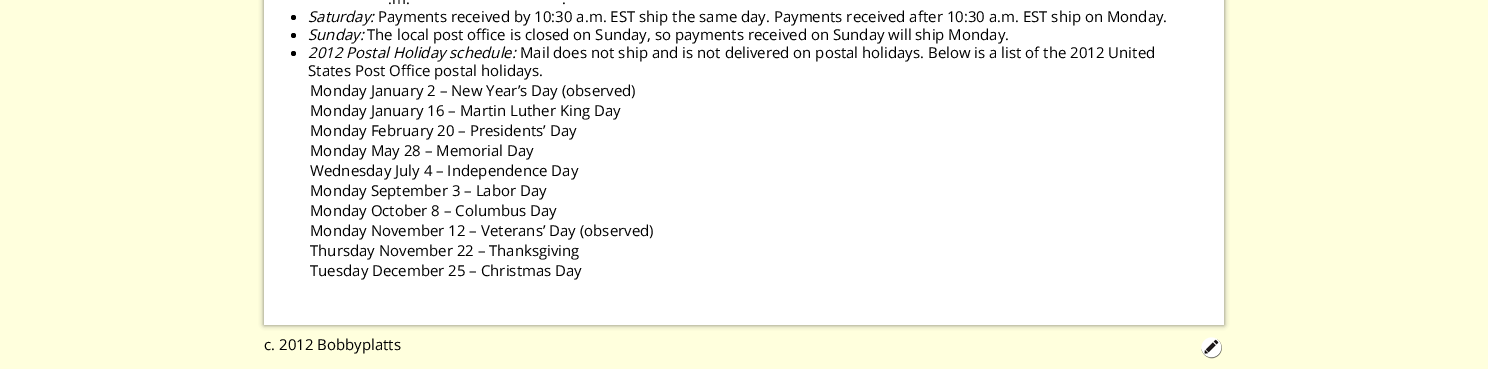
%!PS
<< /PageSize [1488 369] /PageUsesTransparency true >> setpagedevice
/f/fill load def
/C { dup -16 bitshift 255 div exch dup -8 bitshift 255 and 255 div exch 255 and 255 div setrgbcolor } def
/F { [ exch dup neg 0 0 3 -1 roll 0 0 ] selectfont } def
/T { moveto show } def
/R { rectfill } def
/A { dup .setfillconstantalpha .setstrokeconstantalpha } def
/O { newpath 0 360 arc closepath } def
/Q { 5 dict begin { /r /h /w /y /x } { exch def } forall
  x r add y moveto x w add y 2 copy h add r arct x w add y h add x 1 index r arct
  x y h add x y r arct x y 2 copy exch w add exch r arct closepath end } def
/S { 12 dict begin { /a /b /q /h /w /y /x } { exch def } forall gsave /was 0 def
  9 -2 -9 { dup b mul 4 div /e exch def 1 sub .425 mul 2.718 exch exp 1 add a .99 .min exch div /now exch def
    1 1 now sub 1 was sub div sub A /was now def
    w h .min e 2 mul add 0 gt { x e sub y e sub w e 2 mul add h e 2 mul add
      q e add b .6 mul add w h .min 2 div e add .min 0 .max Q fill } if } for grestore end } def
/I { 5 dict begin { /h /w /y /x /name } { exch def } forall
  gsave x y translate w h scale
  w h 8 [w 0 0 h 0 0] name (r) file false 3 colorimage grestore end } def
0 .pushpdf14devicefilter
0 369 translate 1 -1 scale
4 setmiterlimit
16#FFFFDD C
0 0 1488 369 R
16#000000 C
264 -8 960 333 0 2.5 .5 S
16#FFFFFF C
264 0 960 325 R
/OpenSans-Regular 15 F
16#000000 C
(.m.) 388 4 T
(.) 562 4 T
293.5 17.5 2.5 O f
/OpenSans-Italic 15 F
(Saturday:) 308 22 T
/OpenSans-Regular 15 F
(Payments received by 10:30 a.m. EST ship the same day. Payments received after 10:30 a.m. EST ship on Monday.) 378 22 T
293.5 35.5 2.5 O f
/OpenSans-Italic 15 F
(Sunday:) 308 40 T
/OpenSans-Regular 15 F
(The local post office is closed on Sunday, so payments received on Sunday will ship Monday.) 367 40 T
293.5 53.5 2.5 O f
/OpenSans-Italic 15 F
(2012 Postal Holiday schedule:) 308 58 T
/OpenSans-Regular 15 F
(Mail does not ship and is not delivered on postal holidays. Below is a list of the 2012 United) 520 58 T
(States Post Office postal holidays.) 308 76 T
(Monday January 2 – New Year’s Day \(observed\)) 310 96 T
(Monday January 16 – Martin Luther King Day) 310 116 T
(Monday February 20 – Presidents’ Day) 310 136 T
(Monday May 28 – Memorial Day) 310 156 T
(Wednesday July 4 – Independence Day) 310 176 T
(Monday September 3 – Labor Day) 310 196 T
(Monday October 8 – Columbus Day) 310 216 T
(Monday November 12 – Veterans’ Day \(observed\)) 310 236 T
(Thursday November 22 – Thanksgiving) 310 256 T
(Tuesday December 25 – Christmas Day) 310 276 T
(c. 2012 Bobbyplatts) 264 350 T
(1.rgb) 1201 337 21 22 I
.poppdf14devicefilter showpage
